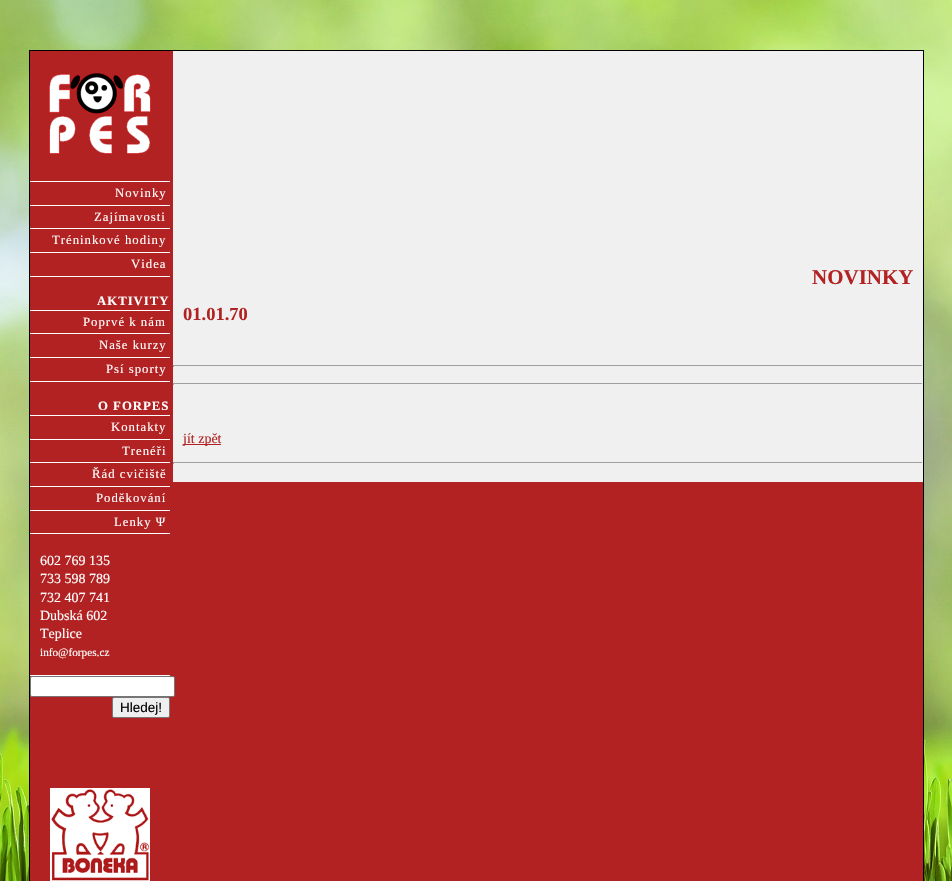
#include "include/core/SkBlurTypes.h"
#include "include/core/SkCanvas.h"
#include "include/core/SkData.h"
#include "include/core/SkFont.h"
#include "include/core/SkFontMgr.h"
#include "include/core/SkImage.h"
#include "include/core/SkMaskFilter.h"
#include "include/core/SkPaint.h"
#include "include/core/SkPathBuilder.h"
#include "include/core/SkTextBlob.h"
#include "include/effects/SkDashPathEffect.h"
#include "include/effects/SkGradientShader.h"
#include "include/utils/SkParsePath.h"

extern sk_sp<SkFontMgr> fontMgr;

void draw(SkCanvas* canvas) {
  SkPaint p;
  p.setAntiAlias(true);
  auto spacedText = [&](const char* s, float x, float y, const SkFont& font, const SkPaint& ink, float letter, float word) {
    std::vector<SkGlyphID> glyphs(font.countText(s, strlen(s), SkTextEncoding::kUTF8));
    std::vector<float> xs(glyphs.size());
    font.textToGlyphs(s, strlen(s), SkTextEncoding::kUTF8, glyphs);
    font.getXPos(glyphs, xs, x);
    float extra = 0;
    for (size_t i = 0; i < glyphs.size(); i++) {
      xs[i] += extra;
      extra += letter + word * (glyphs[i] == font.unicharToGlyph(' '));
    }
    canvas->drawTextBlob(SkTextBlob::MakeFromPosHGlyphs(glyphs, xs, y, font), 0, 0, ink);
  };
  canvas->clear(SK_ColorWHITE);
  canvas->drawImageRect(SkImages::DeferredFromEncodedData(SkData::MakeFromFileName("images/1.png")), SkRect::MakeLTRB(0, 0, 952, 881), SkSamplingOptions());
  p.setColor(SkColorSetRGB(178, 34, 34));
  canvas->drawRect(SkRect::MakeLTRB(30, 51, 923, 881), p);
  p.setColor(SK_ColorBLACK);
  canvas->drawRect(SkRect::MakeLTRB(29, 50, 924, 51), p);
  canvas->drawRect(SkRect::MakeLTRB(923, 50, 924, 881), p);
  canvas->drawRect(SkRect::MakeLTRB(29, 50, 30, 881), p);
  canvas->drawImageRect(SkImages::DeferredFromEncodedData(SkData::MakeFromFileName("images/2.png")), SkRect::MakeLTRB(49, 73, 151, 154), SkSamplingOptions());
  p.setColor(SK_ColorWHITE);
  canvas->drawRect(SkRect::MakeLTRB(30, 181, 170, 182), p);
  canvas->drawRect(SkRect::MakeLTRB(30, 205, 170, 206), p);
  canvas->drawRect(SkRect::MakeLTRB(30, 228, 170, 229), p);
  canvas->drawRect(SkRect::MakeLTRB(30, 252, 170, 253), p);
  canvas->drawRect(SkRect::MakeLTRB(30, 276, 170, 277), p);
  canvas->drawRect(SkRect::MakeLTRB(30, 310, 170, 311), p);
  canvas->drawRect(SkRect::MakeLTRB(30, 333, 170, 334), p);
  canvas->drawRect(SkRect::MakeLTRB(30, 357, 170, 358), p);
  canvas->drawRect(SkRect::MakeLTRB(30, 381, 170, 382), p);
  canvas->drawRect(SkRect::MakeLTRB(30, 415, 170, 416), p);
  canvas->drawRect(SkRect::MakeLTRB(30, 439, 170, 440), p);
  canvas->drawRect(SkRect::MakeLTRB(30, 462, 170, 463), p);
  canvas->drawRect(SkRect::MakeLTRB(30, 486, 170, 487), p);
  canvas->drawRect(SkRect::MakeLTRB(30, 510, 170, 511), p);
  canvas->drawRect(SkRect::MakeLTRB(30, 533, 170, 534), p);
  canvas->drawRect(SkRect::MakeLTRB(30, 675, 170, 676), p);
  canvas->drawRoundRect(SkRect::MakeLTRB(30.5f, 676.5f, 174.5f, 696.5f), 1.5f, 1.5f, p);
  p.setStyle(SkPaint::kStroke_Style);
  p.setStrokeWidth(1);
  p.setColor(SkColorSetRGB(118, 118, 118));
  canvas->drawRoundRect(SkRect::MakeLTRB(30.5f, 676.5f, 174.5f, 696.5f), 1.5f, 1.5f, p);
  p.setStyle(SkPaint::kFill_Style);
  p.setColor(SkColorSetRGB(239, 239, 239));
  canvas->drawRoundRect(SkRect::MakeLTRB(112.5f, 697.5f, 169.5f, 717.5f), 1.5f, 1.5f, p);
  p.setStyle(SkPaint::kStroke_Style);
  p.setColor(SkColorSetRGB(118, 118, 118));
  canvas->drawRoundRect(SkRect::MakeLTRB(112.5f, 697.5f, 169.5f, 717.5f), 1.5f, 1.5f, p);
  canvas->drawImageRect(SkImages::DeferredFromEncodedData(SkData::MakeFromFileName("images/3.png")), SkRect::MakeLTRB(50, 788, 150, 881), SkSamplingOptions());
  p.setStyle(SkPaint::kFill_Style);
  p.setColor(SkColorSetRGB(240, 240, 240));
  canvas->drawRect(SkRect::MakeLTRB(173, 51, 923, 482), p);
  p.setColor(SkColorSetRGB(159, 159, 159));
  canvas->drawRect(SkRect::MakeLTRB(173, 365, 923, 366), p);
  p.setColor(SkColorSetRGB(238, 238, 238));
  canvas->drawRect(SkRect::MakeLTRB(922, 365, 923, 367), p);
  p.setColor(SkColorSetRGB(159, 159, 159));
  canvas->drawRect(SkRect::MakeLTRB(173, 365, 174, 367), p);
  canvas->drawRect(SkRect::MakeLTRB(173, 383, 923, 384), p);
  p.setColor(SkColorSetRGB(238, 238, 238));
  canvas->drawRect(SkRect::MakeLTRB(922, 383, 923, 385), p);
  p.setColor(SkColorSetRGB(159, 159, 159));
  canvas->drawRect(SkRect::MakeLTRB(173, 383, 174, 385), p);
  p.setColor(SkColorSetRGB(178, 34, 34));
  canvas->drawRect(SkRect::MakeLTRB(183, 444, 221, 445), p);
  p.setColor(SkColorSetRGB(159, 159, 159));
  canvas->drawRect(SkRect::MakeLTRB(173, 462, 923, 463), p);
  p.setColor(SkColorSetRGB(238, 238, 238));
  canvas->drawRect(SkRect::MakeLTRB(922, 462, 923, 464), p);
  p.setColor(SkColorSetRGB(159, 159, 159));
  canvas->drawRect(SkRect::MakeLTRB(173, 462, 174, 464), p);
  SkFont font1(fontMgr->matchFamilyStyle("Liberation Serif", SkFontStyle::Normal()), 12.75f);
  font1.setSubpixel(true);
  p.setColor(SK_ColorWHITE);
  spacedText("Novinky", 115, 197, font1, p, 1, 0);
  spacedText("Zajímavosti", 94, 221, font1, p, 1, 0);
  spacedText("Tréninkové hodiny", 52, 244, font1, p, 1, 0);
  spacedText("Videa", 131, 268, font1, p, 1, 0);
  SkFont font2(fontMgr->matchFamilyStyle("Liberation Serif", SkFontStyle::Bold()), 12.75f);
  font2.setSubpixel(true);
  spacedText("AKTIVITY", 97, 305, font2, p, 1, 0);
  spacedText("Poprvé k nám", 83, 326, font1, p, 1, 0);
  spacedText("Naše kurzy", 99, 349, font1, p, 1, 0);
  spacedText("Psí sporty", 106, 373, font1, p, 1, 0);
  spacedText("O FORPES", 98, 410, font2, p, 1, 0);
  spacedText("Kontakty", 111, 431, font1, p, 1, 0);
  spacedText("Trenéři", 122, 455, font1, p, 1, 0);
  spacedText("Řád cvičiště", 92, 478, font1, p, 1, 0);
  spacedText("Poděkování", 96, 502, font1, p, 1, 0);
  spacedText("Lenky Ψ", 114, 526, font1, p, 1, 0);
  SkFont font3(fontMgr->matchFamilyStyle("Liberation Serif", SkFontStyle::Normal()), 14);
  font3.setSubpixel(true);
  canvas->drawString("602 769 135", 40, 565, font3, p);
  canvas->drawString("733 598 789", 40, 583, font3, p);
  canvas->drawString("732 407 741", 40, 602, font3, p);
  canvas->drawString("Dubská 602", 40, 620, font3, p);
  canvas->drawString("Teplice", 40, 638, font3, p);
  SkFont font4(fontMgr->matchFamilyStyle("Liberation Serif", SkFontStyle::Normal()), 11.25f);
  font4.setSubpixel(true);
  canvas->drawString("info@forpes.cz", 40, 656, font4, p);
  SkFont font5(fontMgr->matchFamilyStyle("Liberation Sans", SkFontStyle::Normal()), 13.5f);
  font5.setSubpixel(true);
  p.setColor(SK_ColorBLACK);
  canvas->drawString("Hledej!", 120, 712, font5, p);
  SkFont font6(fontMgr->matchFamilyStyle("Liberation Serif", SkFontStyle::Bold()), 21);
  font6.setSubpixel(true);
  p.setColor(SkColorSetRGB(178, 34, 34));
  canvas->drawString("NOVINKY", 812, 284, font6, p);
  SkFont font7(fontMgr->matchFamilyStyle("Liberation Serif", SkFontStyle::Bold()), 18.5f);
  font7.setSubpixel(true);
  canvas->drawString("01.01.70", 183, 320, font7, p);
  canvas->drawString("jít zpět", 183, 443, font3, p);
}
